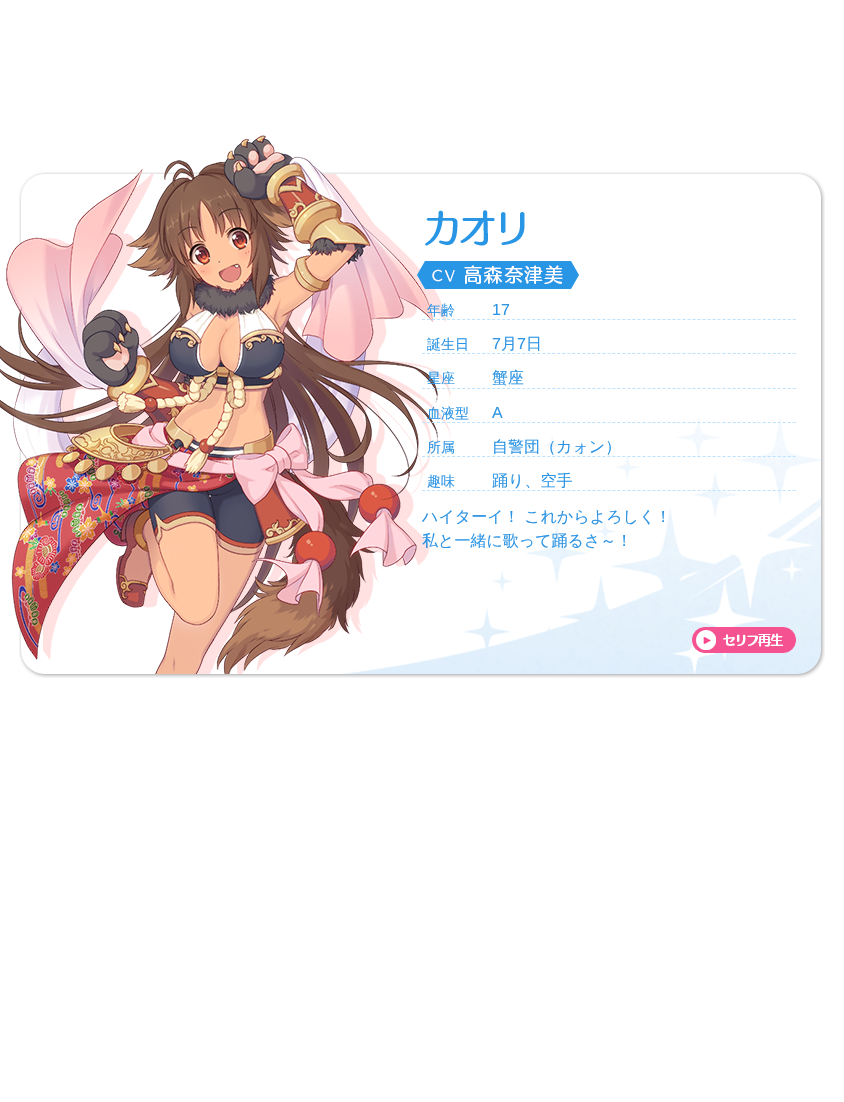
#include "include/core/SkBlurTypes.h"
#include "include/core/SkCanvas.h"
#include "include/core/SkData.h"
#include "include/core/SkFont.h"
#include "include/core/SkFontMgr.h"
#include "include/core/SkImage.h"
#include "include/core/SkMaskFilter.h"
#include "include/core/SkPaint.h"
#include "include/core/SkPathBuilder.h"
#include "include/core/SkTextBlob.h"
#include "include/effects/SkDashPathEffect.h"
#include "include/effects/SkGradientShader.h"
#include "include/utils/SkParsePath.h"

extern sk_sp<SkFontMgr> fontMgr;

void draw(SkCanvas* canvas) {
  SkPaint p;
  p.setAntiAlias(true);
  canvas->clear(SK_ColorWHITE);
  canvas->drawImageRect(SkImages::DeferredFromEncodedData(SkData::MakeFromFileName("images/1.png")), SkRect::MakeLTRB(19, 172, 825, 678), SkSamplingOptions());
  canvas->drawImageRect(SkImages::DeferredFromEncodedData(SkData::MakeFromFileName("images/2.png")), SkRect::MakeLTRB(0, 135, 451, 674), SkSamplingOptions());
  canvas->drawImageRect(SkImages::DeferredFromEncodedData(SkData::MakeFromFileName("images/3.png")), SkRect::MakeLTRB(417, 210, 579, 289), SkSamplingOptions());
  p.setStyle(SkPaint::kStroke_Style);
  p.setStrokeWidth(1);
  p.setColor(SkColorSetRGB(188, 226, 255));
  p.setPathEffect(SkDashPathEffect::Make({{3, 2.01f}}, 0));
  canvas->drawPath(SkPathBuilder().moveTo(422, 319.5f).lineTo(796, 319.5f).detach(), p);
  p.setPathEffect(nullptr);
  p.setPathEffect(SkDashPathEffect::Make({{3, 2.01f}}, 0));
  canvas->drawPath(SkPathBuilder().moveTo(422, 353.5f).lineTo(796, 353.5f).detach(), p);
  p.setPathEffect(nullptr);
  p.setPathEffect(SkDashPathEffect::Make({{3, 2.01f}}, 0));
  canvas->drawPath(SkPathBuilder().moveTo(422, 388.5f).lineTo(796, 388.5f).detach(), p);
  p.setPathEffect(nullptr);
  p.setPathEffect(SkDashPathEffect::Make({{3, 2.01f}}, 0));
  canvas->drawPath(SkPathBuilder().moveTo(422, 422.5f).lineTo(796, 422.5f).detach(), p);
  p.setPathEffect(nullptr);
  p.setPathEffect(SkDashPathEffect::Make({{3, 2.01f}}, 0));
  canvas->drawPath(SkPathBuilder().moveTo(422, 456.5f).lineTo(796, 456.5f).detach(), p);
  p.setPathEffect(nullptr);
  p.setPathEffect(SkDashPathEffect::Make({{3, 2.01f}}, 0));
  canvas->drawPath(SkPathBuilder().moveTo(422, 490.5f).lineTo(796, 490.5f).detach(), p);
  p.setPathEffect(nullptr);
  canvas->drawImageRect(SkImages::DeferredFromEncodedData(SkData::MakeFromFileName("images/4.png")), SkRect::MakeLTRB(692, 627, 796, 653), SkSamplingOptions());
  SkFont font1(fontMgr->matchFamilyStyle("WenQuanYi Zen Hei", SkFontStyle(500, SkFontStyle::kNormal_Width, SkFontStyle::kUpright_Slant)), 14);
  font1.setSubpixel(true);
  p.setStyle(SkPaint::kFill_Style);
  p.setColor(SkColorSetRGB(44, 148, 228));
  canvas->drawString("年齢", 427, 315, font1, p);
  SkFont font2(fontMgr->matchFamilyStyle("Liberation Sans", SkFontStyle::Normal()), 16);
  font2.setSubpixel(true);
  canvas->drawString("17", 492, 315, font2, p);
  canvas->drawString("誕生日", 427, 349, font1, p);
  canvas->drawString("7", 492, 349, font2, p);
  SkFont font3(fontMgr->matchFamilyStyle("WenQuanYi Zen Hei", SkFontStyle(500, SkFontStyle::kNormal_Width, SkFontStyle::kUpright_Slant)), 16);
  font3.setSubpixel(true);
  canvas->drawString("月", 501, 349, font3, p);
  canvas->drawString("7", 517, 349, font2, p);
  canvas->drawString("日", 526, 349, font3, p);
  canvas->drawString("星座", 427, 383, font1, p);
  canvas->drawString("蟹座", 492, 383, font3, p);
  canvas->drawString("血液型", 427, 418, font1, p);
  canvas->drawString("A", 492, 418, font2, p);
  canvas->drawString("所属", 427, 452, font1, p);
  canvas->drawString("自警団（カォン）", 492, 452, font3, p);
  canvas->drawString("趣味", 427, 486, font1, p);
  canvas->drawString("踊り、空手", 492, 486, font3, p);
  canvas->drawString("ハイターイ！ これからよろしく！", 422, 522, font3, p);
  canvas->drawString("私と一緒に歌って踊るさ～！", 422, 546, font3, p);
}
